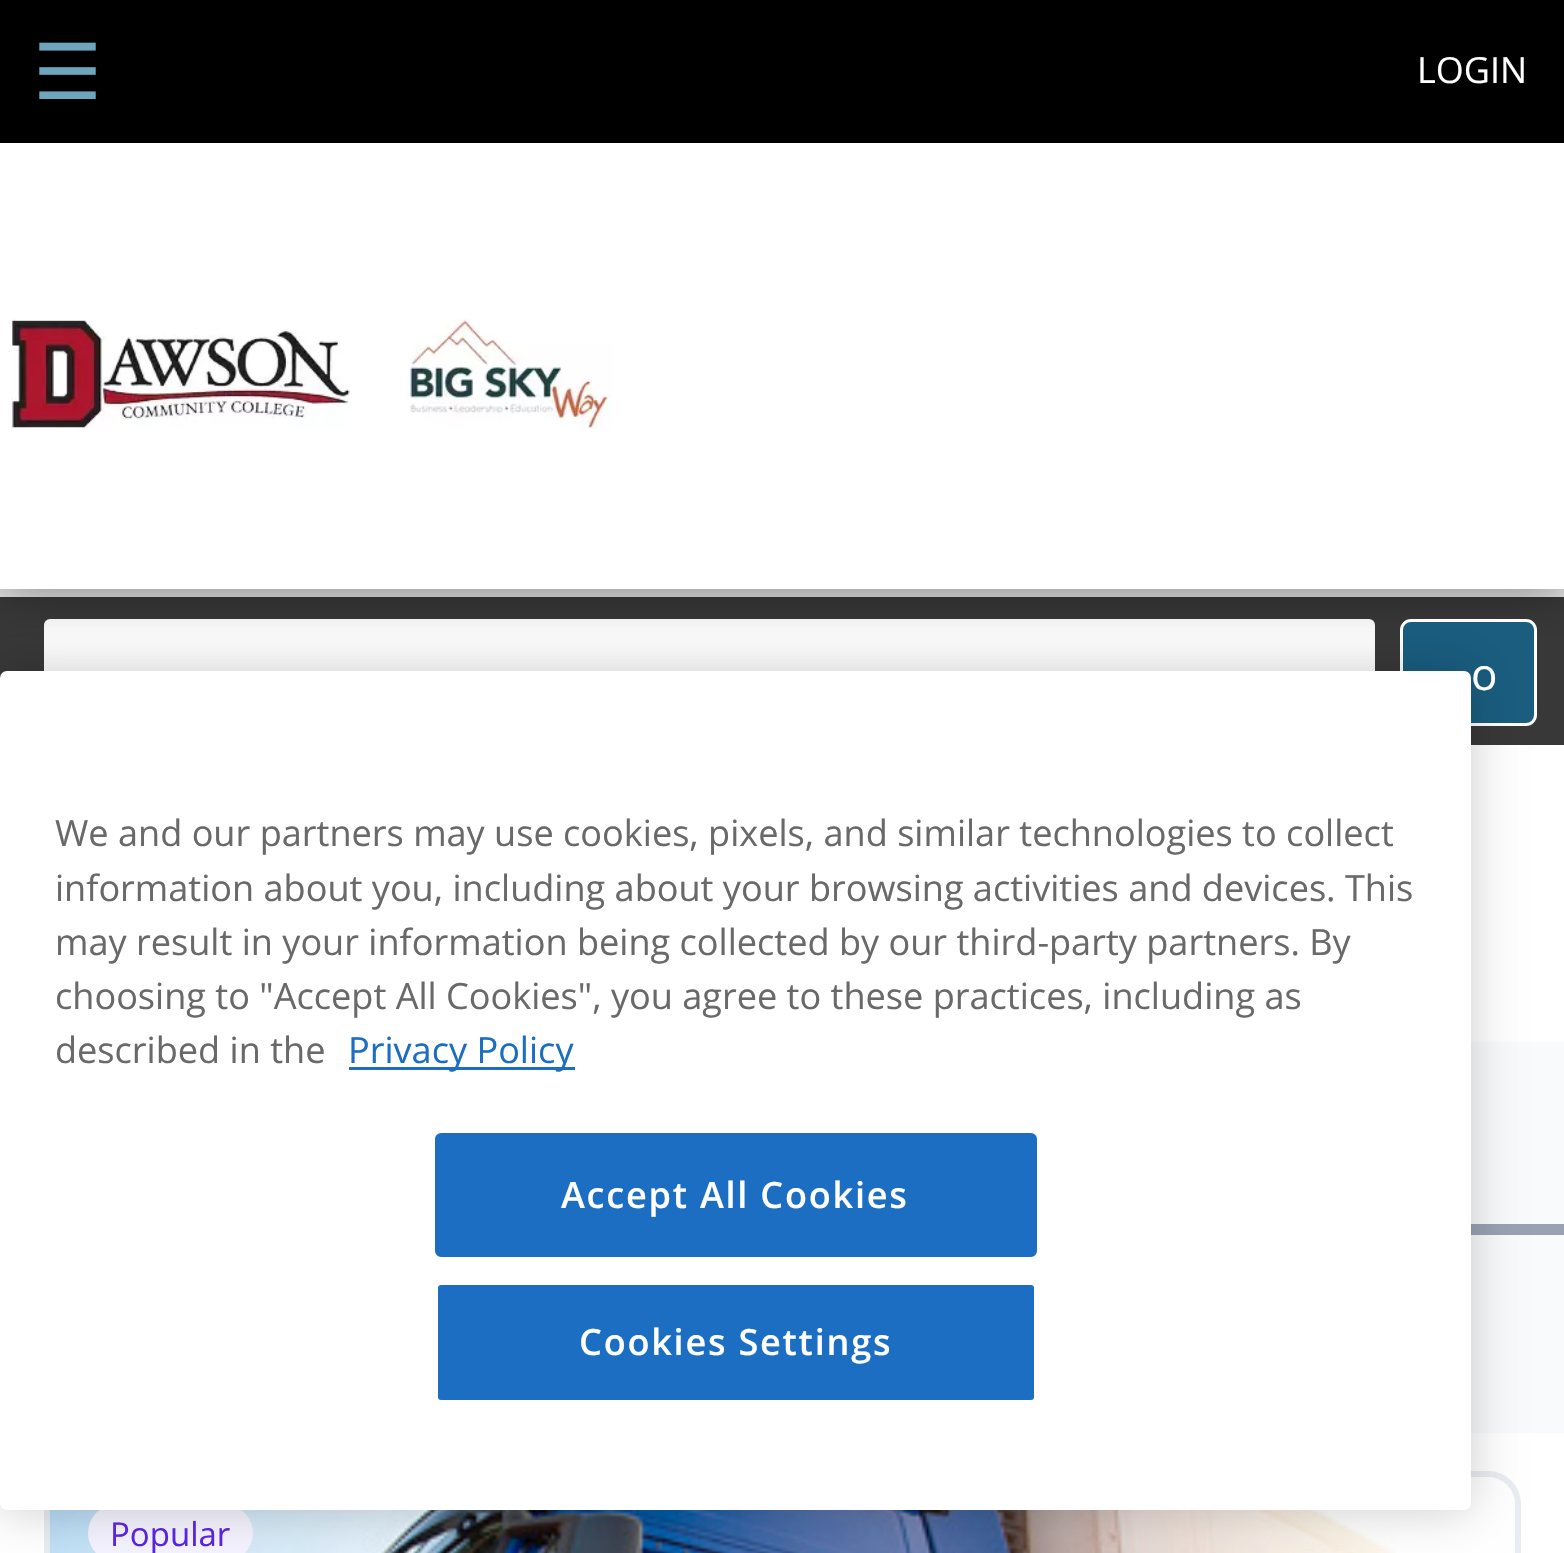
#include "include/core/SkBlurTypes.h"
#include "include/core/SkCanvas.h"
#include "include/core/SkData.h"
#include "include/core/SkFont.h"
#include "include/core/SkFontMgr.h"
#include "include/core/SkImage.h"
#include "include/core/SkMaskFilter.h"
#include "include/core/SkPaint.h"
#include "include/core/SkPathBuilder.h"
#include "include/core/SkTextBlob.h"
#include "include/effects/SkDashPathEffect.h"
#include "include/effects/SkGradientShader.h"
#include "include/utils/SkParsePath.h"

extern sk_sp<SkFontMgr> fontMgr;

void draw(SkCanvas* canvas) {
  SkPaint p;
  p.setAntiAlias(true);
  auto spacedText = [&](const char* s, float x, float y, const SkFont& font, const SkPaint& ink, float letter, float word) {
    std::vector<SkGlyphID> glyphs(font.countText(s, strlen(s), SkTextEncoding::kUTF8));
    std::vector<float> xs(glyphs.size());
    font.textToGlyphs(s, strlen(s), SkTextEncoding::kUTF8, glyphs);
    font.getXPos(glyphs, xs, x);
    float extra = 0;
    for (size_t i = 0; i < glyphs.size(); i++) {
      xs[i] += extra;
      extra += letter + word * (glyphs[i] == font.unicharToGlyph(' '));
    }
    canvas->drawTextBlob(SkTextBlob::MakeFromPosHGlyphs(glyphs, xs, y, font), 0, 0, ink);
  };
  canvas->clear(SK_ColorWHITE);
  p.setColor(SK_ColorBLACK);
  canvas->drawRect(SkRect::MakeLTRB(0, 0, 1564, 143), p);
  p.setColor(SkColorSetRGB(226, 226, 226));
  canvas->drawRect(SkRect::MakeLTRB(0, 589, 1564, 597), p);
  p.setColor(SkColorSetRGB(56, 56, 56));
  canvas->drawRect(SkRect::MakeLTRB(0, 597, 1564, 745), p);
  p.setColor(SK_ColorWHITE);
  canvas->drawRoundRect(SkRect::MakeLTRB(44, 619, 1375, 723), 6, 6, p);
  p.setColor(SkColorSetARGB(107, 0, 0, 0));
  p.setMaskFilter(SkMaskFilter::MakeBlur(kNormal_SkBlurStyle, 23.5f));
  canvas->drawRect(SkRect::MakeLTRB(0, 146, 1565, 591), p);
  p.setMaskFilter(nullptr);
  p.setColor(SK_ColorWHITE);
  canvas->drawRect(SkRect::MakeLTRB(0, 143, 1564, 589), p);
  canvas->drawImageRect(SkImages::DeferredFromEncodedData(SkData::MakeFromFileName("images/1.png")), SkRect::MakeLTRB(11, 319, 612, 429), SkSamplingOptions());
  p.setColor(SkColorSetRGB(26, 93, 127));
  canvas->drawRoundRect(SkRect::MakeLTRB(1401.5f, 620.5f, 1535.5f, 724.5f), 9.5f, 9.5f, p);
  p.setStyle(SkPaint::kStroke_Style);
  p.setStrokeWidth(3);
  p.setColor(SK_ColorWHITE);
  canvas->drawRoundRect(SkRect::MakeLTRB(1401.5f, 620.5f, 1535.5f, 724.5f), 9.5f, 9.5f, p);
  p.setStyle(SkPaint::kFill_Style);
  p.setColor(SkColorSetRGB(249, 250, 251));
  canvas->drawRect(SkRect::MakeLTRB(1471, 1042, 1564, 1224), p);
  p.setColor(SkColorSetRGB(152, 162, 179));
  canvas->drawRect(SkRect::MakeLTRB(1471, 1224, 1564, 1235), p);
  p.setColor(SkColorSetRGB(249, 250, 251));
  canvas->drawRect(SkRect::MakeLTRB(1471, 1235, 1564, 1433), p);
  p.setStyle(SkPaint::kStroke_Style);
  p.setStrokeWidth(6);
  p.setColor(SkColorSetRGB(233, 236, 240));
  canvas->drawRoundRect(SkRect::MakeLTRB(47, 1474, 1518, 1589), 30, 30, p);
  p.setStyle(SkPaint::kFill_Style);
  p.setColor(SK_ColorWHITE);
  canvas->drawRoundRect(SkRect::MakeLTRB(50, 1477, 1515, 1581), 28, 28, p);
  canvas->drawImageRect(SkImages::DeferredFromEncodedData(SkData::MakeFromFileName("images/2.png")), SkRect::MakeLTRB(49, 1510, 1396, 1553), SkSamplingOptions());
  p.setColor(SkColorSetRGB(244, 243, 255));
  canvas->drawRoundRect(SkRect::MakeLTRB(88, 1504, 253, 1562), 29, 29, p);
  p.setColor(SkColorSetARGB(51, 0, 0, 0));
  p.setMaskFilter(SkMaskFilter::MakeBlur(kNormal_SkBlurStyle, 25));
  canvas->drawRoundRect(SkRect::MakeLTRB(0, 671, 1471, 1510), 7, 7, p);
  p.setMaskFilter(nullptr);
  p.setColor(SK_ColorWHITE);
  canvas->drawRoundRect(SkRect::MakeLTRB(0, 671, 1471, 1510), 7, 7, p);
  p.setColor(SkColorSetRGB(27, 110, 194));
  canvas->drawRect(SkRect::MakeLTRB(349, 1067, 575, 1070), p);
  canvas->drawRoundRect(SkRect::MakeLTRB(436.5f, 1134.5f, 1035.5f, 1255.5f), 4.5f, 4.5f, p);
  p.setStyle(SkPaint::kStroke_Style);
  p.setStrokeWidth(3);
  canvas->drawRoundRect(SkRect::MakeLTRB(436.5f, 1134.5f, 1035.5f, 1255.5f), 4.5f, 4.5f, p);
  p.setStyle(SkPaint::kFill_Style);
  canvas->drawRoundRect(SkRect::MakeLTRB(436.5f, 1283.5f, 1035.5f, 1401.5f), 4.5f, 4.5f, p);
  p.setStyle(SkPaint::kStroke_Style);
  p.setColor(SK_ColorWHITE);
  canvas->drawRoundRect(SkRect::MakeLTRB(436.5f, 1283.5f, 1035.5f, 1401.5f), 4.5f, 4.5f, p);
  SkFont font1(fontMgr->matchFamilyStyle("DejaVu Sans", SkFontStyle::Normal()), 77);
  font1.setSubpixel(true);
  p.setStyle(SkPaint::kFill_Style);
  p.setColor(SkColorSetRGB(108, 165, 188));
  canvas->drawString("☰", 33, 99, font1, p);
  SkFont font2(fontMgr->matchFamilyStyle("Open Sans", SkFontStyle::Normal()), 36);
  font2.setSubpixel(true);
  p.setColor(SK_ColorWHITE);
  canvas->drawString("LOGIN", 1417, 83, font2, p);
  SkFont font3(fontMgr->matchFamilyStyle("Open Sans", SkFontStyle::Normal()), 44);
  font3.setSubpixel(true);
  canvas->drawString("o", 1471, 690, font3, p);
  SkFont font4(fontMgr->matchFamilyStyle("Open Sans", SkFontStyle::Normal()), 33);
  font4.setSubpixel(true);
  p.setColor(SkColorSetRGB(89, 37, 220));
  canvas->drawString("Popular", 110, 1546, font4, p);
  SkFont font5(fontMgr->matchFamilyStyle("Open Sans", SkFontStyle::Normal()), 36.1f);
  font5.setSubpixel(true);
  p.setColor(SkColorSetRGB(105, 105, 105));
  canvas->drawString("We and our partners may use cookies, pixels, and similar technologies to collect", 55, 846, font5, p);
  canvas->drawString("information about you, including about your browsing activities and devices. This", 55, 901, font5, p);
  canvas->drawString("may result in your information being collected by our third-party partners. By", 55, 955, font5, p);
  canvas->drawString("choosing to \"Accept All Cookies\", you agree to these practices, including as", 55, 1009, font5, p);
  canvas->drawString("described in the", 55, 1063, font5, p);
  p.setColor(SkColorSetRGB(27, 110, 194));
  canvas->drawString("Privacy Policy", 348, 1063, font5, p);
  SkFont font6(fontMgr->matchFamilyStyle("Open Sans", SkFontStyle(600, SkFontStyle::kNormal_Width, SkFontStyle::kUpright_Slant)), 36.1f);
  font6.setSubpixel(true);
  p.setColor(SK_ColorWHITE);
  spacedText("Accept All Cookies", 561, 1208, font6, p, 1.75f, 0);
  spacedText("Cookies Settings", 579, 1355, font6, p, 1.75f, 0);
}
